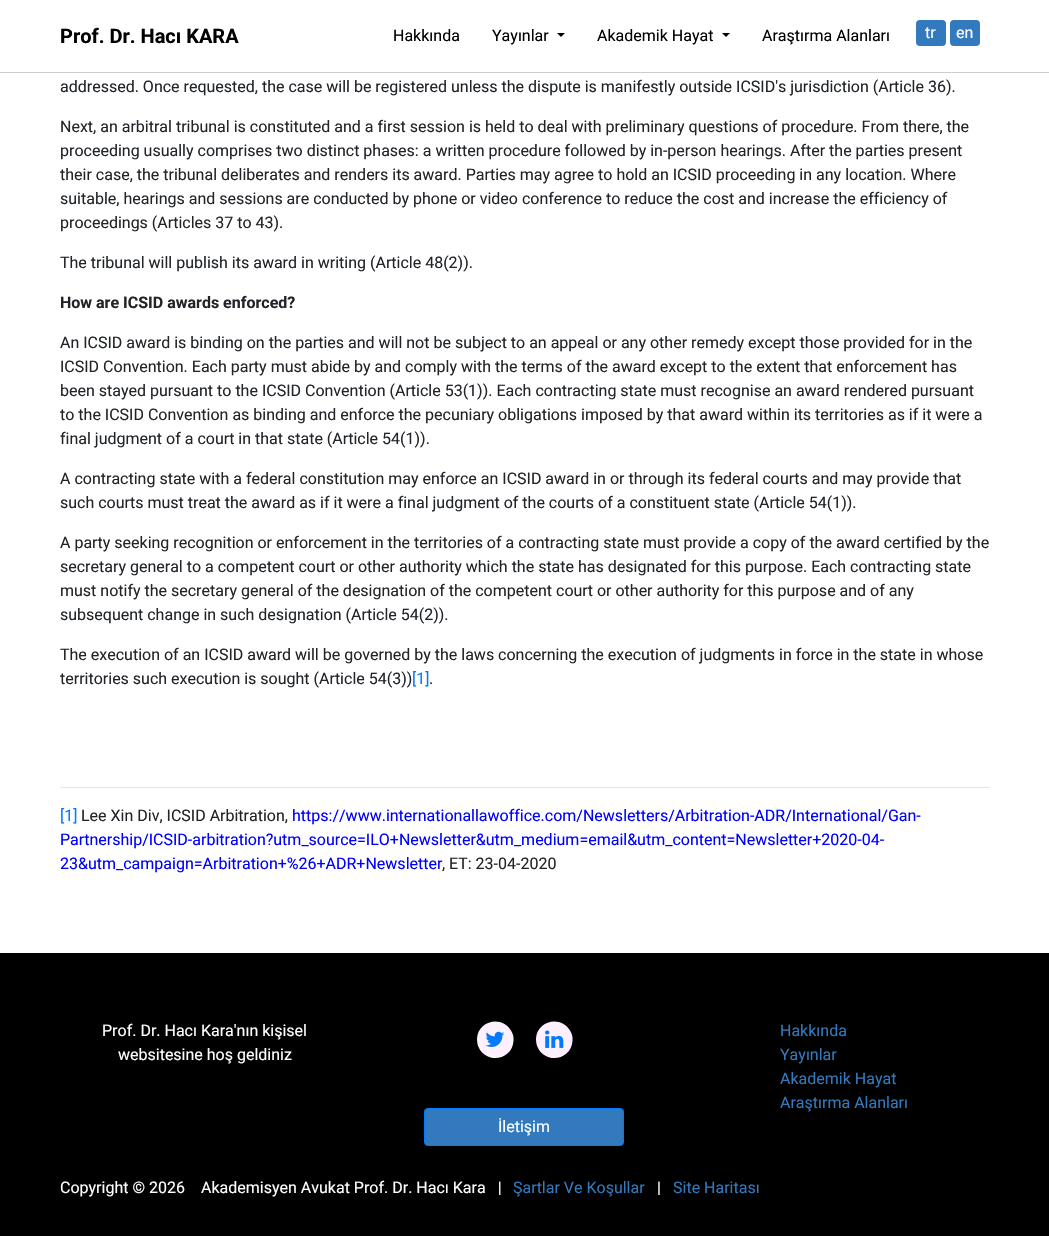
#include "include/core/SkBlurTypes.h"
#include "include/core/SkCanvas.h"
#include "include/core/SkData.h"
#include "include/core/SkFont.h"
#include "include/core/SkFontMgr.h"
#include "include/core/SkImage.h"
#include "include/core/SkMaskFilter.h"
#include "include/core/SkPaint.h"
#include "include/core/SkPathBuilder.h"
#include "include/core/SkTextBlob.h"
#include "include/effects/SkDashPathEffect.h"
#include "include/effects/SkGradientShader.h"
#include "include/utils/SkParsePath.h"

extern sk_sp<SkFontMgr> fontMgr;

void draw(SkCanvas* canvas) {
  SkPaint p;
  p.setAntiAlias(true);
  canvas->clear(SK_ColorWHITE);
  p.setColor(SkColorSetRGB(204, 204, 204));
  canvas->drawRect(SkRect::MakeLTRB(0, 72, 1049, 73), p);
  p.setColor(SK_ColorBLACK);
  canvas->drawPath(SkPathBuilder().moveTo(557, 33).lineTo(565, 33).lineTo(561, 37).close().detach(), p);
  canvas->drawPath(SkPathBuilder().moveTo(722, 33).lineTo(730, 33).lineTo(726, 37).close().detach(), p);
  p.setColor(SkColorSetRGB(51, 121, 190));
  canvas->drawRoundRect(SkRect::MakeLTRB(916, 20, 946, 46), 4, 4, p);
  canvas->drawRoundRect(SkRect::MakeLTRB(950, 20, 980, 46), 4, 4, p);
  p.setColor(SkColorSetRGB(230, 230, 230));
  canvas->drawRect(SkRect::MakeLTRB(60, 787, 990, 788), p);
  p.setColor(SK_ColorBLACK);
  canvas->drawRect(SkRect::MakeLTRB(0, 953, 1049, 1236), p);
  p.setColor(SkColorSetRGB(255, 240, 255));
  canvas->drawPath(SkPathBuilder().moveTo(511, 1030.5f).cubicTo(513, 1033.5f, 514, 1037.5f, 513.5f, 1041).cubicTo(512.5f, 1059, 488.5f, 1064.5f, 479.5f, 1049).cubicTo(477.5f, 1046, 477, 1042, 477, 1038.5f).cubicTo(478, 1020.5f, 502, 1015, 511, 1030.5f).close().detach(), p);
  canvas->drawImageRect(SkImages::DeferredFromEncodedData(SkData::MakeFromFileName("images/1.png")), SkRect::MakeLTRB(485, 1031, 505, 1047), SkSamplingOptions());
  canvas->drawPath(SkPathBuilder().moveTo(570, 1030.5f).cubicTo(572, 1033.5f, 573, 1037.5f, 572.5f, 1041).cubicTo(571.5f, 1059, 547.5f, 1064.5f, 538.5f, 1049).cubicTo(536.5f, 1046, 536, 1042, 536, 1038.5f).cubicTo(537, 1020.5f, 561, 1015, 570, 1030.5f).close().detach(), p);
  canvas->drawImageRect(SkImages::DeferredFromEncodedData(SkData::MakeFromFileName("images/2.png")), SkRect::MakeLTRB(545, 1030, 564, 1048), SkSamplingOptions());
  p.setColor(SkColorSetRGB(51, 121, 190));
  canvas->drawRoundRect(SkRect::MakeLTRB(424.5f, 1108.5f, 623.5f, 1145.5f), 3.5f, 3.5f, p);
  p.setStyle(SkPaint::kStroke_Style);
  p.setStrokeWidth(1);
  p.setColor(SkColorSetRGB(0, 123, 255));
  canvas->drawRoundRect(SkRect::MakeLTRB(424.5f, 1108.5f, 623.5f, 1145.5f), 3.5f, 3.5f, p);
  SkFont font1(fontMgr->matchFamilyStyle("Roboto", SkFontStyle::Bold()), 20);
  font1.setSubpixel(true);
  p.setStyle(SkPaint::kFill_Style);
  p.setColor(SK_ColorBLACK);
  canvas->drawString("Prof. Dr. Hacı KARA", 60, 43, font1, p);
  SkFont font2(fontMgr->matchFamilyStyle("Roboto", SkFontStyle::Normal()), 16);
  font2.setSubpixel(true);
  canvas->drawString("Hakkında", 393, 41, font2, p);
  canvas->drawString("Yayınlar", 492, 41, font2, p);
  canvas->drawString("Akademik Hayat", 597, 41, font2, p);
  canvas->drawString("Araştırma Alanları", 762, 41, font2, p);
  p.setColor(SK_ColorWHITE);
  canvas->drawString("tr", 925, 38, font2, p);
  canvas->drawString("en", 956, 38, font2, p);
  p.setColor(SkColorSetRGB(33, 37, 41));
  canvas->drawString("addressed. Once requested, the case will be registered unless the dispute is manifestly outside ICSID's jurisdiction (Article 36).", 60, 92, font2, p);
  canvas->drawString("Next, an arbitral tribunal is constituted and a first session is held to deal with preliminary questions of procedure. From there, the", 60, 132, font2, p);
  canvas->drawString("proceeding usually comprises two distinct phases: a written procedure followed by in-person hearings. After the parties present", 60, 156, font2, p);
  canvas->drawString("their case, the tribunal deliberates and renders its award. Parties may agree to hold an ICSID proceeding in any location. Where", 60, 180, font2, p);
  canvas->drawString("suitable, hearings and sessions are conducted by phone or video conference to reduce the cost and increase the efficiency of", 60, 204, font2, p);
  canvas->drawString("proceedings (Articles 37 to 43).", 60, 228, font2, p);
  canvas->drawString("The tribunal will publish its award in writing (Article 48(2)).", 60, 268, font2, p);
  SkFont font3(fontMgr->matchFamilyStyle("Roboto", SkFontStyle::Bold()), 16);
  font3.setSubpixel(true);
  canvas->drawString("How are ICSID awards enforced?", 60, 308, font3, p);
  canvas->drawString("An ICSID award is binding on the parties and will not be subject to an appeal or any other remedy except those provided for in the", 60, 348, font2, p);
  canvas->drawString("ICSID Convention. Each party must abide by and comply with the terms of the award except to the extent that enforcement has", 60, 372, font2, p);
  canvas->drawString("been stayed pursuant to the ICSID Convention (Article 53(1)). Each contracting state must recognise an award rendered pursuant", 60, 396, font2, p);
  canvas->drawString("to the ICSID Convention as binding and enforce the pecuniary obligations imposed by that award within its territories as if it were a", 60, 420, font2, p);
  canvas->drawString("final judgment of a court in that state (Article 54(1)).", 60, 444, font2, p);
  canvas->drawString("A contracting state with a federal constitution may enforce an ICSID award in or through its federal courts and may provide that", 60, 484, font2, p);
  canvas->drawString("such courts must treat the award as if it were a final judgment of the courts of a constituent state (Article 54(1)).", 60, 508, font2, p);
  canvas->drawString("A party seeking recognition or enforcement in the territories of a contracting state must provide a copy of the award certified by the", 60, 548, font2, p);
  canvas->drawString("secretary general to a competent court or other authority which the state has designated for this purpose. Each contracting state", 60, 572, font2, p);
  canvas->drawString("must notify the secretary general of the designation of the competent court or other authority for this purpose and of any", 60, 596, font2, p);
  canvas->drawString("subsequent change in such designation (Article 54(2)).", 60, 620, font2, p);
  canvas->drawString("The execution of an ICSID award will be governed by the laws concerning the execution of judgments in force in the state in whose", 60, 660, font2, p);
  canvas->drawString("territories such execution is sought (Article 54(3))", 60, 684, font2, p);
  p.setColor(SkColorSetRGB(0, 123, 255));
  canvas->drawString("[1]", 412, 684, font2, p);
  p.setColor(SkColorSetRGB(33, 37, 41));
  canvas->drawString(".", 429, 684, font2, p);
  p.setColor(SkColorSetRGB(0, 123, 255));
  canvas->drawString("[1]", 60, 821, font2, p);
  p.setColor(SkColorSetRGB(33, 37, 41));
  canvas->drawString("Lee Xin Div, ICSID Arbitration,", 81, 821, font2, p);
  p.setColor(SkColorSetRGB(0, 0, 255));
  canvas->drawString("https://www.internationallawoffice.com/Newsletters/Arbitration-ADR/International/Gan-", 292, 821, font2, p);
  canvas->drawString("Partnership/ICSID-arbitration?utm_source=ILO+Newsletter&utm_medium=email&utm_content=Newsletter+2020-04-", 60, 845, font2, p);
  canvas->drawString("23&utm_campaign=Arbitration+%26+ADR+Newsletter", 60, 869, font2, p);
  p.setColor(SkColorSetRGB(33, 37, 41));
  canvas->drawString(", ET: 23-04-2020", 442, 869, font2, p);
  p.setColor(SK_ColorWHITE);
  canvas->drawString("Prof. Dr. Hacı Kara'nın kişisel", 102, 1036, font2, p);
  canvas->drawString("websitesine hoş geldiniz", 118, 1060, font2, p);
  p.setColor(SkColorSetRGB(51, 121, 190));
  canvas->drawString("Hakkında", 780, 1036, font2, p);
  canvas->drawString("Yayınlar", 780, 1060, font2, p);
  canvas->drawString("Akademik Hayat", 780, 1084, font2, p);
  canvas->drawString("Araştırma Alanları", 780, 1108, font2, p);
  p.setColor(SK_ColorWHITE);
  canvas->drawString("İletişim", 498, 1132, font2, p);
  canvas->drawString("Copyright © 2026   Akademisyen Avukat Prof. Dr. Hacı Kara  |", 60, 1193, font2, p);
  p.setColor(SkColorSetRGB(51, 121, 190));
  canvas->drawString("Şartlar Ve Koşullar", 513, 1193, font2, p);
  p.setColor(SK_ColorWHITE);
  canvas->drawString("|", 657, 1193, font2, p);
  p.setColor(SkColorSetRGB(51, 121, 190));
  canvas->drawString("Site Haritası", 673, 1193, font2, p);
}
